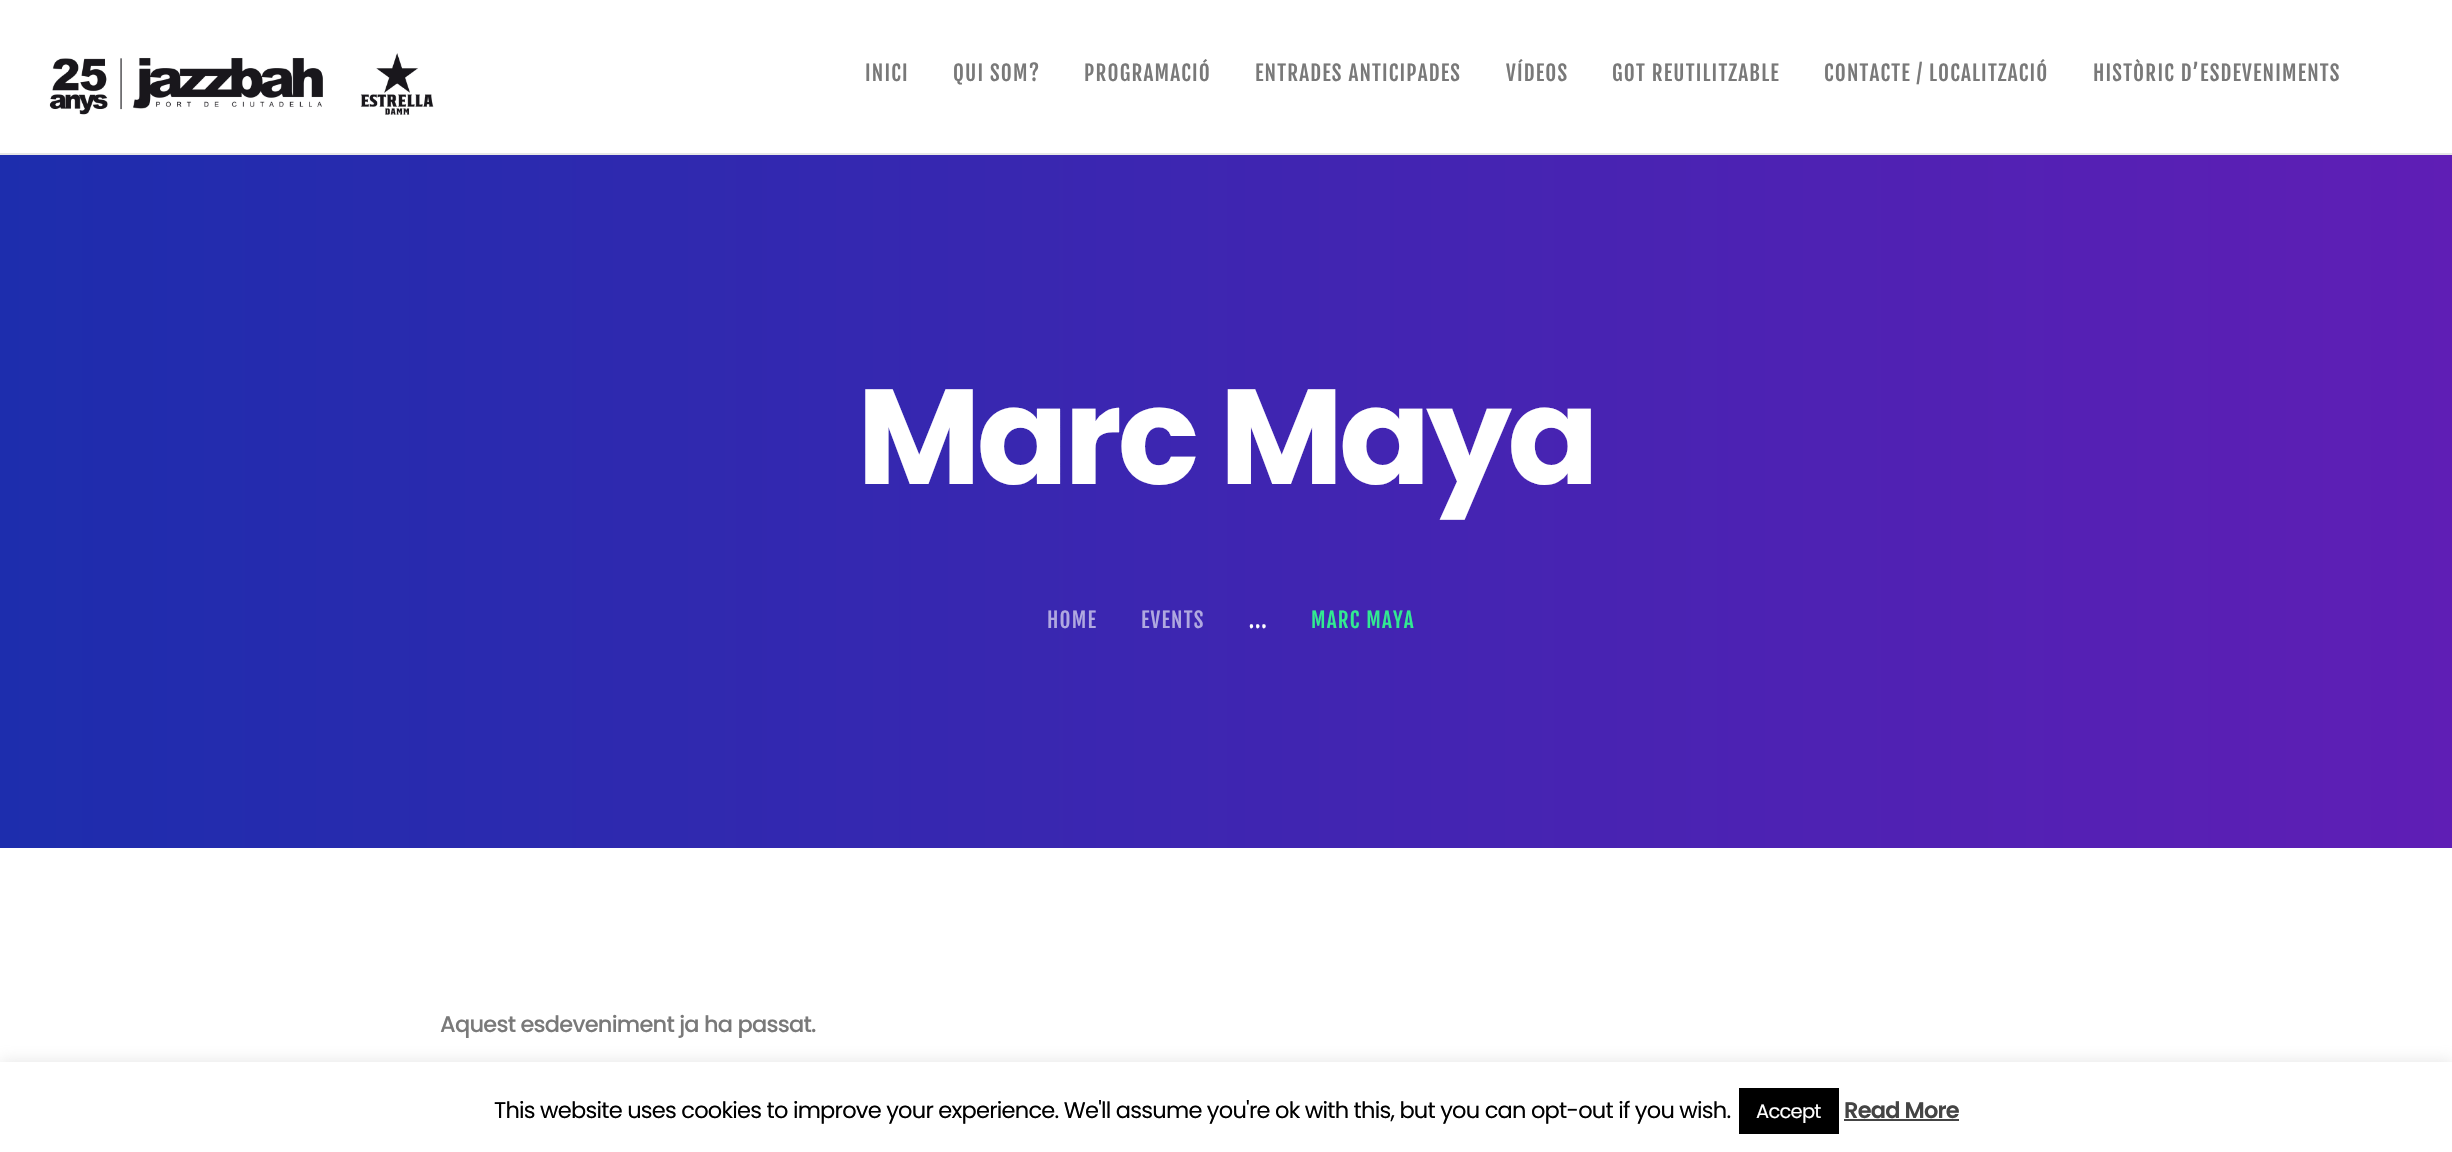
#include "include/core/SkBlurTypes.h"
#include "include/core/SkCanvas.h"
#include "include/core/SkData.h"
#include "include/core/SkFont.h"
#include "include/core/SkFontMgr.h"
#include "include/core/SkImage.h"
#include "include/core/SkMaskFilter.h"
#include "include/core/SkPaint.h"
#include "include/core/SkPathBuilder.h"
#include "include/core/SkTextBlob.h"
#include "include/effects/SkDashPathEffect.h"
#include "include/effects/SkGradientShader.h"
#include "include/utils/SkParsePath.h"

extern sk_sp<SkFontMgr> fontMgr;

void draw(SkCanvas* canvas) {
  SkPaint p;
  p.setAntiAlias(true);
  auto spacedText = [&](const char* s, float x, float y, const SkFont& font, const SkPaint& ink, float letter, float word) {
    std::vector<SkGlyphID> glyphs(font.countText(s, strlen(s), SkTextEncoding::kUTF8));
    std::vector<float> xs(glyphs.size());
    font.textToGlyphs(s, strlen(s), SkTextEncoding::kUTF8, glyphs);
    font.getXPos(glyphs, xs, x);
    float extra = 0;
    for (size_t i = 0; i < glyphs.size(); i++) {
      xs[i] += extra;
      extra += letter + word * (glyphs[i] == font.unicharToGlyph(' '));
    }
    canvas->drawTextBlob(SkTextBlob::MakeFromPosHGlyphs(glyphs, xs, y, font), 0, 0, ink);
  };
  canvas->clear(SK_ColorWHITE);
  p.setColor(SkColorSetRGB(230, 230, 230));
  canvas->drawRect(SkRect::MakeLTRB(0, 153, 2452, 155), p);
  canvas->drawImageRect(SkImages::DeferredFromEncodedData(SkData::MakeFromFileName("images/1.png")), SkRect::MakeLTRB(49, 53, 434, 115), SkSamplingOptions());
  {
    const SkColor colors[] = {SkColorSetRGB(29, 45, 173), SkColorSetRGB(95, 30, 181)};
    const float stops[] = {0, 1};
    const SkPoint ends[] = {{0, 501}, {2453, 501}};
    p.setShader(SkGradientShader::MakeLinear(ends, colors, stops, 2, SkTileMode::kClamp));
    p.setAlpha(255);
  }
  canvas->drawRect(SkRect::MakeLTRB(0, 155, 2452, 848), p);
  p.setShader(nullptr);
  p.setColor(SkColorSetARGB(77, 172, 171, 171));
  p.setMaskFilter(SkMaskFilter::MakeBlur(kNormal_SkBlurStyle, 7.5f));
  canvas->drawRect(SkRect::MakeLTRB(0, 1061, 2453, 1151), p);
  p.setMaskFilter(nullptr);
  p.setColor(SK_ColorWHITE);
  canvas->drawRect(SkRect::MakeLTRB(0, 1062, 2452, 1152), p);
  p.setColor(SK_ColorBLACK);
  canvas->drawRect(SkRect::MakeLTRB(1739, 1088, 1839, 1134), p);
  p.setColor(SkColorSetRGB(68, 68, 68));
  canvas->drawRect(SkRect::MakeLTRB(1844, 1119, 1959, 1121), p);
  SkFont font1(fontMgr->matchFamilyStyle("Fjalla One", SkFontStyle::Normal()), 21);
  font1.setSubpixel(true);
  p.setColor(SkColorSetRGB(121, 121, 121));
  spacedText("INICI", 865, 81, font1, p, 1.2f, 0);
  spacedText("QUI SOM?", 953, 81, font1, p, 1.2f, 0);
  spacedText("PROGRAMACIÓ", 1084, 81, font1, p, 1.2f, 0);
  spacedText("ENTRADES ANTICIPADES", 1255, 81, font1, p, 1.2f, 0);
  spacedText("VÍDEOS", 1506, 81, font1, p, 1.2f, 0);
  spacedText("GOT REUTILITZABLE", 1612, 81, font1, p, 1.2f, 0);
  spacedText("CONTACTE / LOCALITZACIÓ", 1824, 81, font1, p, 1.2f, 0);
  spacedText("HISTÒRIC D’ESDEVENIMENTS", 2093, 81, font1, p, 1.2f, 0);
  SkFont font2(fontMgr->matchFamilyStyle("Poppins", SkFontStyle::Bold()), 135);
  font2.setSubpixel(true);
  p.setColor(SK_ColorWHITE);
  spacedText("Marc Maya", 857, 484, font2, p, -4.25f, 0);
  p.setColor(SkColorSetRGB(176, 168, 224));
  spacedText("HOME", 1047, 628, font1, p, 1.2f, 0);
  spacedText("EVENTS", 1141, 628, font1, p, 1.2f, 0);
  p.setColor(SK_ColorWHITE);
  spacedText("...", 1249, 628, font1, p, 1.2f, 0);
  p.setColor(SkColorSetRGB(50, 234, 145));
  spacedText("MARC MAYA", 1311, 628, font1, p, 1.2f, 0);
  SkFont font3(fontMgr->matchFamilyStyle("Poppins", SkFontStyle(500, SkFontStyle::kNormal_Width, SkFontStyle::kUpright_Slant)), 22.5f);
  font3.setSubpixel(true);
  p.setColor(SkColorSetRGB(121, 121, 121));
  spacedText("Aquest esdeveniment ja ha passat.", 440, 1032, font3, p, -0.75f, 0);
  SkFont font4(fontMgr->matchFamilyStyle("Poppins", SkFontStyle::Normal()), 22.5f);
  font4.setSubpixel(true);
  p.setColor(SK_ColorBLACK);
  spacedText("This website uses cookies to improve your experience. We'll assume you're ok with this, but you can opt-out if you wish.", 494, 1118, font4, p, -0.75f, 0);
  SkFont font5(fontMgr->matchFamilyStyle("Poppins", SkFontStyle::Normal()), 19.5f);
  font5.setSubpixel(true);
  p.setColor(SK_ColorWHITE);
  spacedText("Accept", 1756, 1118, font5, p, -0.75f, 0);
  SkFont font6(fontMgr->matchFamilyStyle("Poppins", SkFontStyle(600, SkFontStyle::kNormal_Width, SkFontStyle::kUpright_Slant)), 22.5f);
  font6.setSubpixel(true);
  p.setColor(SkColorSetRGB(68, 68, 68));
  spacedText("Read More", 1844, 1118, font6, p, -0.75f, 0);
}
